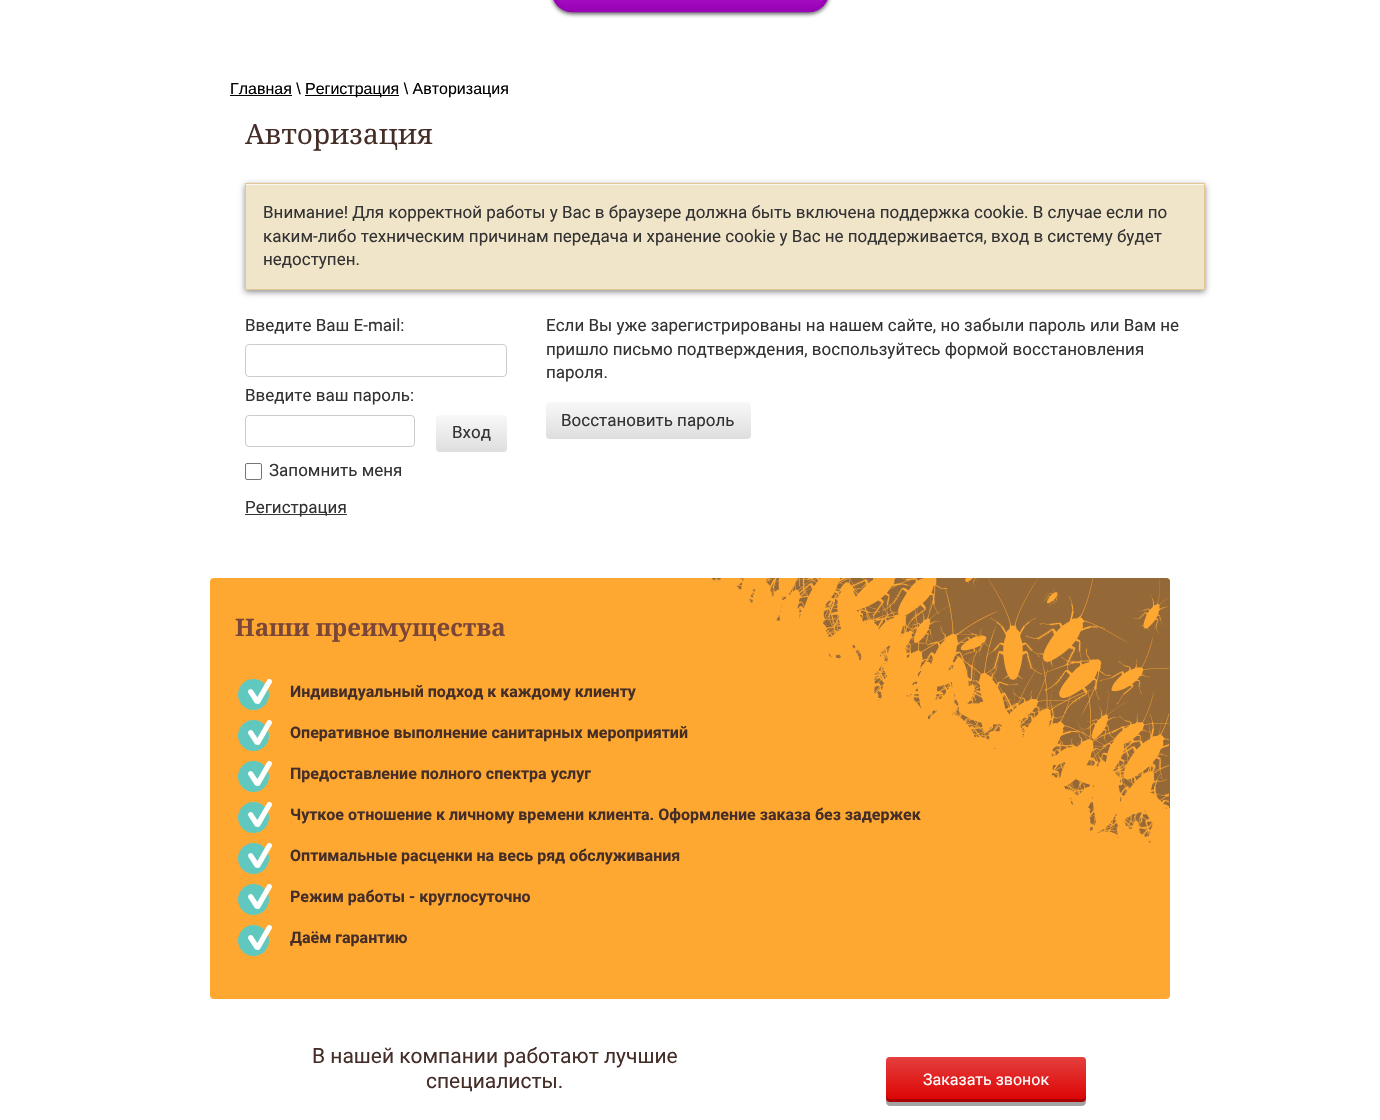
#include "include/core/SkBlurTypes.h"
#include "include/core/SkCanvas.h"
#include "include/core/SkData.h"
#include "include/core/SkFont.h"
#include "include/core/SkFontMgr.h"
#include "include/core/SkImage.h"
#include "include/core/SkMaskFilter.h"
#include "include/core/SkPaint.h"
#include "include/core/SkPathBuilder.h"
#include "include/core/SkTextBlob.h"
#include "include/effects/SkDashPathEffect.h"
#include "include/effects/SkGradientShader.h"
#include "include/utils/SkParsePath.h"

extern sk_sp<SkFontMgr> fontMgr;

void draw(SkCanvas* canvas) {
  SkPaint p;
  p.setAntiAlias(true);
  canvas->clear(SK_ColorWHITE);
  canvas->drawImageRect(SkImages::DeferredFromEncodedData(SkData::MakeFromFileName("images/1.png")), SkRect::MakeLTRB(549, 0, 832, 18), SkSamplingOptions());
  p.setColor(SK_ColorBLACK);
  canvas->drawRect(SkRect::MakeLTRB(230, 95, 292, 96), p);
  canvas->drawRect(SkRect::MakeLTRB(305, 95, 399, 96), p);
  p.setColor(SkColorSetARGB(115, 0, 0, 0));
  p.setMaskFilter(SkMaskFilter::MakeBlur(kNormal_SkBlurStyle, 3));
  canvas->drawRect(SkRect::MakeLTRB(245, 185, 1205, 292), p);
  p.setMaskFilter(nullptr);
  p.setColor(SkColorSetRGB(240, 228, 201));
  canvas->drawRect(SkRect::MakeLTRB(246, 185, 1204, 289), p);
  p.setColor(SkColorSetRGB(251, 248, 242));
  canvas->drawRect(SkRect::MakeLTRB(246, 184, 1204, 185), p);
  p.setStyle(SkPaint::kStroke_Style);
  p.setStrokeWidth(1);
  p.setColor(SkColorSetRGB(225, 200, 147));
  canvas->drawRect(SkRect::MakeLTRB(245.5f, 183.5f, 1204.5f, 289.5f), p);
  p.setColor(SkColorSetRGB(204, 204, 204));
  canvas->drawRoundRect(SkRect::MakeLTRB(245.5f, 344.5f, 506.5f, 376.5f), 3.5f, 3.5f, p);
  canvas->drawRoundRect(SkRect::MakeLTRB(245.5f, 415.5f, 414.5f, 446.5f), 3.5f, 3.5f, p);
  p.setStyle(SkPaint::kFill_Style);
  {
    const SkColor colors[] = {SkColorSetRGB(248, 248, 248), SkColorSetRGB(222, 222, 222)};
    const float stops[] = {0, 1};
    const SkPoint ends[] = {{472, 415}, {472, 452}};
    p.setShader(SkGradientShader::MakeLinear(ends, colors, stops, 2, SkTileMode::kClamp));
    p.setAlpha(255);
  }
  canvas->drawRoundRect(SkRect::MakeLTRB(436, 415, 507, 452), 4, 4, p);
  p.setStyle(SkPaint::kStroke_Style);
  p.setShader(nullptr);
  p.setColor(SkColorSetRGB(118, 118, 118));
  canvas->drawRoundRect(SkRect::MakeLTRB(245.5f, 463.5f, 261.5f, 479.5f), 1.5f, 1.5f, p);
  p.setStyle(SkPaint::kFill_Style);
  p.setColor(SkColorSetRGB(54, 54, 54));
  canvas->drawRect(SkRect::MakeLTRB(245, 514, 347, 515), p);
  {
    const SkColor colors[] = {SkColorSetRGB(248, 248, 248), SkColorSetRGB(222, 222, 222)};
    const float stops[] = {0, 1};
    const SkPoint ends[] = {{649, 402}, {649, 439}};
    p.setShader(SkGradientShader::MakeLinear(ends, colors, stops, 2, SkTileMode::kClamp));
    p.setAlpha(255);
  }
  canvas->drawRoundRect(SkRect::MakeLTRB(546, 402, 751, 439), 4, 4, p);
  p.setShader(nullptr);
  p.setColor(SkColorSetRGB(254, 168, 50));
  canvas->drawRoundRect(SkRect::MakeLTRB(210, 578, 1170, 999), 4, 4, p);
  canvas->drawImageRect(SkImages::DeferredFromEncodedData(SkData::MakeFromFileName("images/2.png")), SkRect::MakeLTRB(711, 578, 1170, 844), SkSamplingOptions());
  canvas->drawImageRect(SkImages::DeferredFromEncodedData(SkData::MakeFromFileName("images/3.png")), SkRect::MakeLTRB(238, 679, 272, 710), SkSamplingOptions());
  canvas->drawImageRect(SkImages::DeferredFromEncodedData(SkData::MakeFromFileName("images/3.png")), SkRect::MakeLTRB(238, 720, 272, 751), SkSamplingOptions());
  canvas->drawImageRect(SkImages::DeferredFromEncodedData(SkData::MakeFromFileName("images/3.png")), SkRect::MakeLTRB(238, 761, 272, 792), SkSamplingOptions());
  canvas->drawImageRect(SkImages::DeferredFromEncodedData(SkData::MakeFromFileName("images/3.png")), SkRect::MakeLTRB(238, 802, 272, 833), SkSamplingOptions());
  canvas->drawImageRect(SkImages::DeferredFromEncodedData(SkData::MakeFromFileName("images/3.png")), SkRect::MakeLTRB(238, 843, 272, 874), SkSamplingOptions());
  canvas->drawImageRect(SkImages::DeferredFromEncodedData(SkData::MakeFromFileName("images/3.png")), SkRect::MakeLTRB(238, 884, 272, 915), SkSamplingOptions());
  canvas->drawImageRect(SkImages::DeferredFromEncodedData(SkData::MakeFromFileName("images/3.png")), SkRect::MakeLTRB(238, 925, 272, 956), SkSamplingOptions());
  p.setColor(SkColorSetRGB(163, 163, 163));
  canvas->drawPath(SkPathBuilder().moveTo(886, 1098).lineTo(886, 1102).cubicTo(886, 1104, 888, 1106, 890, 1106).lineTo(1082, 1106).cubicTo(1084, 1106, 1086, 1104, 1086, 1102).lineTo(1086, 1098).cubicTo(1086, 1100, 1084, 1102, 1082, 1102).lineTo(890, 1102).cubicTo(888, 1102, 886, 1100, 886, 1098).close().detach(), p);
  p.setColor(SkColorSetRGB(220, 2, 1));
  canvas->drawRoundRect(SkRect::MakeLTRB(886, 1057, 1086, 1102), 4, 4, p);
  {
    const SkColor colors[] = {SkColorSetARGB(61, 255, 255, 255), SkColorSetARGB(0, 255, 255, 255)};
    const float stops[] = {0, 1};
    const SkPoint ends[] = {{986, 1057}, {986, 1102}};
    p.setShader(SkGradientShader::MakeLinear(ends, colors, stops, 2, SkTileMode::kClamp));
    p.setAlpha(255);
  }
  canvas->drawRoundRect(SkRect::MakeLTRB(886, 1057, 1086, 1102), 4, 4, p);
  p.setShader(nullptr);
  p.setColor(SkColorSetARGB(59, 0, 0, 0));
  canvas->drawPath(SkPathBuilder().moveTo(886, 1095).lineTo(886, 1098).cubicTo(886, 1100, 888, 1102, 890, 1102).lineTo(1082, 1102).cubicTo(1084, 1102, 1086, 1100, 1086, 1098).lineTo(1086, 1095).cubicTo(1086, 1097, 1084, 1099, 1082, 1099).lineTo(890, 1099).cubicTo(888, 1099, 886, 1097, 886, 1095).close().detach(), p);
  SkFont font1(fontMgr->matchFamilyStyle("Liberation Sans", SkFontStyle::Normal()), 16);
  font1.setSubpixel(true);
  p.setColor(SK_ColorBLACK);
  canvas->drawString("Главная \\", 230, 94, font1, p);
  canvas->drawString("Регистрация \\ Авторизация", 305, 94, font1, p);
  SkFont font2(fontMgr->matchFamilyStyle("Noto Serif", SkFontStyle::Normal()), 28);
  font2.setSubpixel(true);
  p.setColor(SkColorSetRGB(69, 46, 40));
  canvas->drawString("Авторизация", 245, 144, font2, p);
  SkFont font3(fontMgr->matchFamilyStyle("Roboto", SkFontStyle::Normal()), 17);
  font3.setSubpixel(true);
  p.setColor(SkColorSetRGB(51, 51, 51));
  canvas->drawString("Внимание! Для корректной работы у Вас в браузере должна быть включена поддержка cookie. В случае если по", 263, 218, font3, p);
  canvas->drawString("каким-либо техническим причинам передача и хранение cookie у Вас не поддерживается, вход в систему будет", 263, 242, font3, p);
  canvas->drawString("недоступен.", 263, 265, font3, p);
  canvas->drawString("Введите Ваш E-mail:", 245, 331, font3, p);
  canvas->drawString("Введите ваш пароль:", 245, 401, font3, p);
  canvas->drawString("Вход", 452, 438, font3, p);
  canvas->drawString("Запомнить меня", 269, 476, font3, p);
  canvas->drawString("Регистрация", 245, 513, font3, p);
  canvas->drawString("Если Вы уже зарегистрированы на нашем сайте, но забыли пароль или Вам не", 546, 331, font3, p);
  canvas->drawString("пришло письмо подтверждения, воспользуйтесь формой восстановления", 546, 355, font3, p);
  canvas->drawString("пароля.", 546, 378, font3, p);
  canvas->drawString("Восстановить пароль", 561, 426, font3, p);
  SkFont font4(fontMgr->matchFamilyStyle("Noto Serif", SkFontStyle::Bold()), 24);
  font4.setSubpixel(true);
  p.setColor(SkColorSetRGB(122, 70, 56));
  canvas->drawString("Наши преимущества", 235, 636, font4, p);
  SkFont font5(fontMgr->matchFamilyStyle("Roboto", SkFontStyle::Bold()), 16);
  font5.setSubpixel(true);
  p.setColor(SkColorSetRGB(69, 46, 40));
  canvas->drawString("Индивидуальный подход к каждому клиенту", 290, 697, font5, p);
  canvas->drawString("Оперативное выполнение санитарных мероприятий", 290, 738, font5, p);
  canvas->drawString("Предоставление полного спектра услуг", 290, 779, font5, p);
  canvas->drawString("Чуткое отношение к личному времени клиента. Оформление заказа без задержек", 290, 820, font5, p);
  canvas->drawString("Оптимальные расценки на весь ряд обслуживания", 290, 861, font5, p);
  canvas->drawString("Режим работы - круглосуточно", 290, 902, font5, p);
  canvas->drawString("Даём гарантию", 290, 943, font5, p);
  SkFont font6(fontMgr->matchFamilyStyle("Roboto", SkFontStyle::Normal()), 21);
  font6.setSubpixel(true);
  canvas->drawString("В нашей компании работают лучшие", 312, 1063, font6, p);
  canvas->drawString("специалисты.", 426, 1088, font6, p);
  SkFont font7(fontMgr->matchFamilyStyle("Roboto", SkFontStyle::Normal()), 16);
  font7.setSubpixel(true);
  p.setColor(SK_ColorWHITE);
  canvas->drawString("Заказать звонок", 923, 1085, font7, p);
}
